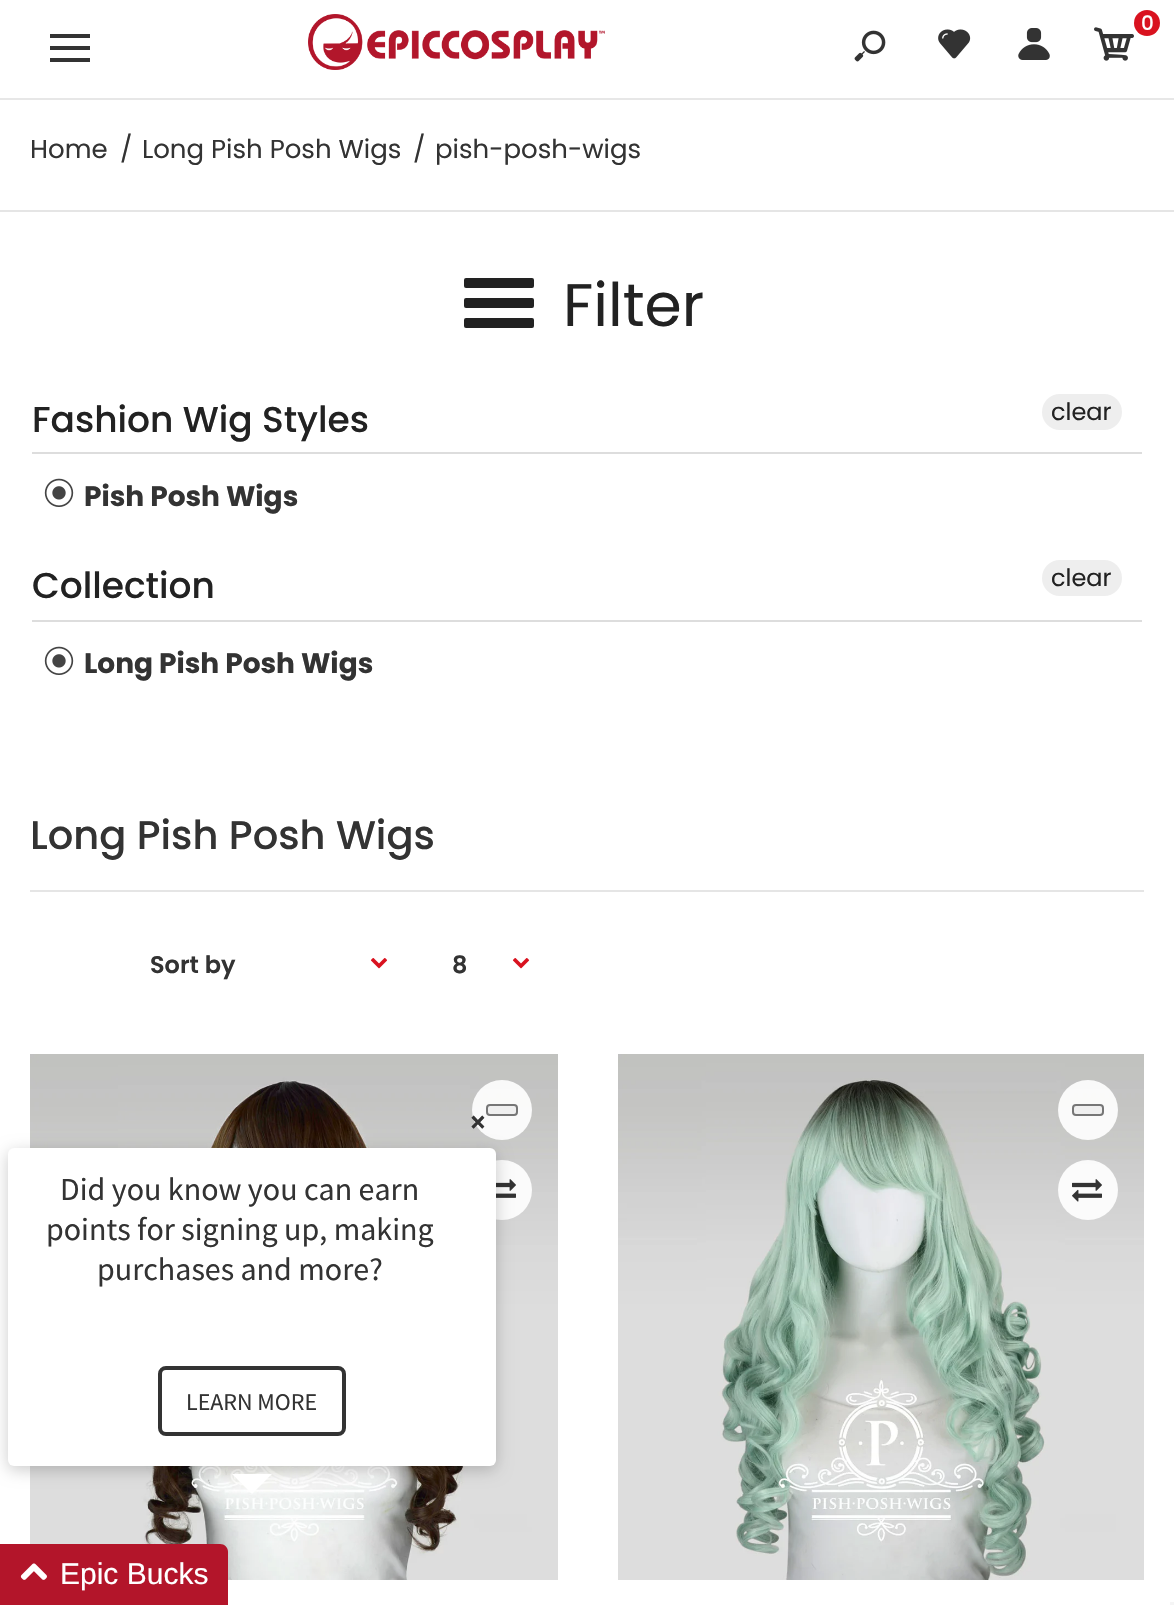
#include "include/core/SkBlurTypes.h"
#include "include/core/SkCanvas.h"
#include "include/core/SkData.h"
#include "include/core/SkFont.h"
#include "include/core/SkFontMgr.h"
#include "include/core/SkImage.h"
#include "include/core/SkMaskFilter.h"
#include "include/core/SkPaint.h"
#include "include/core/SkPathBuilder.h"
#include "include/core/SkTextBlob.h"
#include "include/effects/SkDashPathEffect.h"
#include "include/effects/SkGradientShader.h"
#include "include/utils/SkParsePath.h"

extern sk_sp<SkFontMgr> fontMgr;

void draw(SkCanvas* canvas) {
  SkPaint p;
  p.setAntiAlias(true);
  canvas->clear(SK_ColorWHITE);
  p.setColor(SkColorSetRGB(231, 231, 231));
  canvas->drawRect(SkRect::MakeLTRB(0, 98, 1174, 100), p);
  canvas->drawImageRect(SkImages::DeferredFromEncodedData(SkData::MakeFromFileName("images/1.png")), SkRect::MakeLTRB(308, 14, 605, 70), SkSamplingOptions());
  p.setColor(SkColorSetRGB(217, 18, 31));
  canvas->drawCircle(1147, 23, 13, p);
  canvas->drawImageRect(SkImages::DeferredFromEncodedData(SkData::MakeFromFileName("images/2.png")), SkRect::MakeLTRB(1094, 27, 1134, 61), SkSamplingOptions());
  p.setColor(SkColorSetRGB(51, 51, 51));
  canvas->drawRect(SkRect::MakeLTRB(50, 46, 90, 50), p);
  canvas->drawRect(SkRect::MakeLTRB(50, 34, 90, 38), p);
  canvas->drawRect(SkRect::MakeLTRB(50, 58, 90, 62), p);
  canvas->drawImageRect(SkImages::DeferredFromEncodedData(SkData::MakeFromFileName("images/3.png")), SkRect::MakeLTRB(854, 30, 886, 62), SkSamplingOptions());
  canvas->drawImageRect(SkImages::DeferredFromEncodedData(SkData::MakeFromFileName("images/4.png")), SkRect::MakeLTRB(938, 29, 971, 59), SkSamplingOptions());
  canvas->drawImageRect(SkImages::DeferredFromEncodedData(SkData::MakeFromFileName("images/5.png")), SkRect::MakeLTRB(1018, 28, 1050, 60), SkSamplingOptions());
  p.setColor(SkColorSetRGB(229, 229, 229));
  canvas->drawRect(SkRect::MakeLTRB(0, 210, 1174, 212), p);
  p.setColor(SkColorSetRGB(34, 34, 34));
  canvas->drawRoundRect(SkRect::MakeLTRB(464, 298, 534, 308), 2, 2, p);
  canvas->drawRoundRect(SkRect::MakeLTRB(464, 278, 534, 288), 2, 2, p);
  canvas->drawRoundRect(SkRect::MakeLTRB(464, 318, 534, 328), 2, 2, p);
  p.setColor(SkColorSetRGB(221, 221, 221));
  canvas->drawRect(SkRect::MakeLTRB(32, 452, 1142, 454), p);
  p.setColor(SkColorSetRGB(238, 238, 238));
  canvas->drawRoundRect(SkRect::MakeLTRB(1042, 394, 1122, 430), 18, 18, p);
  canvas->drawImageRect(SkImages::DeferredFromEncodedData(SkData::MakeFromFileName("images/6.png")), SkRect::MakeLTRB(44, 478, 74, 507), SkSamplingOptions());
  canvas->drawRoundRect(SkRect::MakeLTRB(1042, 560, 1122, 596), 18, 18, p);
  canvas->drawImageRect(SkImages::DeferredFromEncodedData(SkData::MakeFromFileName("images/6.png")), SkRect::MakeLTRB(44, 646, 74, 675), SkSamplingOptions());
  p.setColor(SkColorSetRGB(221, 221, 221));
  canvas->drawRect(SkRect::MakeLTRB(32, 620, 1142, 622), p);
  p.setColor(SkColorSetRGB(229, 229, 229));
  canvas->drawRect(SkRect::MakeLTRB(30, 890, 1144, 892), p);
  canvas->drawImageRect(SkImages::DeferredFromEncodedData(SkData::MakeFromFileName("images/7.png")), SkRect::MakeLTRB(370, 958, 388, 969), SkSamplingOptions());
  canvas->drawImageRect(SkImages::DeferredFromEncodedData(SkData::MakeFromFileName("images/7.png")), SkRect::MakeLTRB(512, 958, 530, 969), SkSamplingOptions());
  canvas->drawImageRect(SkImages::DeferredFromEncodedData(SkData::MakeFromFileName("images/8.png")), SkRect::MakeLTRB(30, 1054, 558, 1580), SkSamplingOptions());
  p.setColor(SkColorSetARGB(230, 255, 255, 255));
  canvas->drawCircle(502, 1110, 30, p);
  p.setColor(SkColorSetRGB(239, 239, 239));
  canvas->drawRoundRect(SkRect::MakeLTRB(487, 1105, 517, 1115), 3, 3, p);
  p.setStyle(SkPaint::kStroke_Style);
  p.setStrokeWidth(2);
  p.setColor(SkColorSetRGB(118, 118, 118));
  canvas->drawRoundRect(SkRect::MakeLTRB(487, 1105, 517, 1115), 3, 3, p);
  p.setStyle(SkPaint::kFill_Style);
  p.setColor(SkColorSetARGB(230, 255, 255, 255));
  canvas->drawCircle(502, 1190, 30, p);
  canvas->drawImageRect(SkImages::DeferredFromEncodedData(SkData::MakeFromFileName("images/9.png")), SkRect::MakeLTRB(496, 1179, 516, 1198), SkSamplingOptions());
  canvas->drawImageRect(SkImages::DeferredFromEncodedData(SkData::MakeFromFileName("images/10.png")), SkRect::MakeLTRB(618, 1054, 1144, 1580), SkSamplingOptions());
  canvas->drawCircle(1088, 1110, 30, p);
  p.setColor(SkColorSetRGB(239, 239, 239));
  canvas->drawRoundRect(SkRect::MakeLTRB(1073, 1105, 1103, 1115), 3, 3, p);
  p.setStyle(SkPaint::kStroke_Style);
  p.setColor(SkColorSetRGB(118, 118, 118));
  canvas->drawRoundRect(SkRect::MakeLTRB(1073, 1105, 1103, 1115), 3, 3, p);
  p.setStyle(SkPaint::kFill_Style);
  p.setColor(SkColorSetARGB(230, 255, 255, 255));
  canvas->drawCircle(1088, 1190, 30, p);
  canvas->drawImageRect(SkImages::DeferredFromEncodedData(SkData::MakeFromFileName("images/11.png")), SkRect::MakeLTRB(1072, 1179, 1102, 1202), SkSamplingOptions());
  p.setColor(SkColorSetARGB(51, 0, 0, 0));
  p.setMaskFilter(SkMaskFilter::MakeBlur(kNormal_SkBlurStyle, 8));
  canvas->drawRoundRect(SkRect::MakeLTRB(8, 1152, 496, 1470), 6, 6, p);
  p.setMaskFilter(nullptr);
  p.setColor(SK_ColorWHITE);
  canvas->drawRoundRect(SkRect::MakeLTRB(8, 1148, 496, 1466), 6, 6, p);
  p.setStyle(SkPaint::kStroke_Style);
  p.setStrokeWidth(4);
  p.setColor(SkColorSetRGB(51, 51, 51));
  canvas->drawRoundRect(SkRect::MakeLTRB(160, 1368, 344, 1434), 6, 6, p);
  p.setStyle(SkPaint::kFill_Style);
  p.setColor(SK_ColorWHITE);
  canvas->drawPath(SkPathBuilder().moveTo(232, 1474).lineTo(272, 1474).lineTo(252, 1494).close().detach(), p);
  p.setColor(SkColorSetRGB(179, 21, 42));
  canvas->drawPath(SkPathBuilder().moveTo(0, 1544).lineTo(220, 1544).cubicTo(224.5f, 1544, 228, 1547.5f, 228, 1552).lineTo(228, 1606).lineTo(0, 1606).close().detach(), p);
  canvas->drawImageRect(SkImages::DeferredFromEncodedData(SkData::MakeFromFileName("images/12.png")), SkRect::MakeLTRB(20, 1563, 47, 1580), SkSamplingOptions());
  p.setColor(SkColorSetRGB(245, 245, 245));
  canvas->drawRect(SkRect::MakeLTRB(1170, 1602, 1174, 1605), p);
  SkFont font1(fontMgr->matchFamilyStyle("Poppins", SkFontStyle(500, SkFontStyle::kNormal_Width, SkFontStyle::kUpright_Slant)), 20);
  font1.setSubpixel(true);
  p.setColor(SK_ColorWHITE);
  canvas->drawString("0", 1141, 30, font1, p);
  SkFont font2(fontMgr->matchFamilyStyle("Poppins", SkFontStyle::Normal()), 26);
  font2.setSubpixel(true);
  p.setColor(SkColorSetRGB(51, 51, 51));
  canvas->drawString("Home", 30, 158, font2, p);
  canvas->drawString("/", 120, 158, font2, p);
  canvas->drawString("Long Pish Posh Wigs", 142, 158, font2, p);
  canvas->drawString("/", 413, 158, font2, p);
  canvas->drawString("pish-posh-wigs", 435, 158, font2, p);
  SkFont font3(fontMgr->matchFamilyStyle("Poppins", SkFontStyle::Normal()), 60);
  font3.setSubpixel(true);
  p.setColor(SkColorSetRGB(34, 34, 34));
  canvas->drawString("Filter", 563, 326, font3, p);
  SkFont font4(fontMgr->matchFamilyStyle("Poppins", SkFontStyle(500, SkFontStyle::kNormal_Width, SkFontStyle::kUpright_Slant)), 36);
  font4.setSubpixel(true);
  canvas->drawString("Fashion Wig Styles", 32, 432, font4, p);
  SkFont font5(fontMgr->matchFamilyStyle("Poppins", SkFontStyle::Normal()), 24);
  font5.setSubpixel(true);
  canvas->drawString("clear", 1051, 420, font5, p);
  SkFont font6(fontMgr->matchFamilyStyle("Poppins", SkFontStyle::Bold()), 28);
  font6.setSubpixel(true);
  p.setColor(SkColorSetRGB(51, 51, 51));
  canvas->drawString("Pish Posh Wigs", 84, 506, font6, p);
  p.setColor(SkColorSetRGB(34, 34, 34));
  canvas->drawString("clear", 1051, 586, font5, p);
  p.setColor(SkColorSetRGB(51, 51, 51));
  canvas->drawString("Long Pish Posh Wigs", 84, 673, font6, p);
  p.setColor(SkColorSetRGB(34, 34, 34));
  canvas->drawString("Collection", 32, 598, font4, p);
  SkFont font7(fontMgr->matchFamilyStyle("Poppins", SkFontStyle(500, SkFontStyle::kNormal_Width, SkFontStyle::kUpright_Slant)), 40);
  font7.setSubpixel(true);
  p.setColor(SkColorSetRGB(51, 51, 51));
  canvas->drawString("Long Pish Posh Wigs", 30, 849, font7, p);
  SkFont font8(fontMgr->matchFamilyStyle("Poppins", SkFontStyle(600, SkFontStyle::kNormal_Width, SkFontStyle::kUpright_Slant)), 24);
  font8.setSubpixel(true);
  canvas->drawString("Sort by", 150, 973, font8, p);
  canvas->drawString("8", 452, 973, font8, p);
  SkFont font9(fontMgr->matchFamilyStyle("Source Sans Pro", SkFontStyle::Bold()), 30);
  font9.setSubpixel(true);
  canvas->drawString("×", 470, 1132, font9, p);
  SkFont font10(fontMgr->matchFamilyStyle("Source Sans Pro", SkFontStyle::Normal()), 32);
  font10.setSubpixel(true);
  canvas->drawString("Did you know you can earn", 60, 1200, font10, p);
  canvas->drawString("points for signing up, making", 46, 1240, font10, p);
  canvas->drawString("purchases and more?", 97, 1280, font10, p);
  SkFont font11(fontMgr->matchFamilyStyle("Source Sans Pro", SkFontStyle::Normal()), 24);
  font11.setSubpixel(true);
  canvas->drawString("LEARN MORE", 186, 1410, font11, p);
  SkFont font12(fontMgr->matchFamilyStyle("Liberation Sans", SkFontStyle::Normal()), 30);
  font12.setSubpixel(true);
  p.setColor(SK_ColorWHITE);
  canvas->drawString("Epic Bucks", 60, 1584, font12, p);
}
